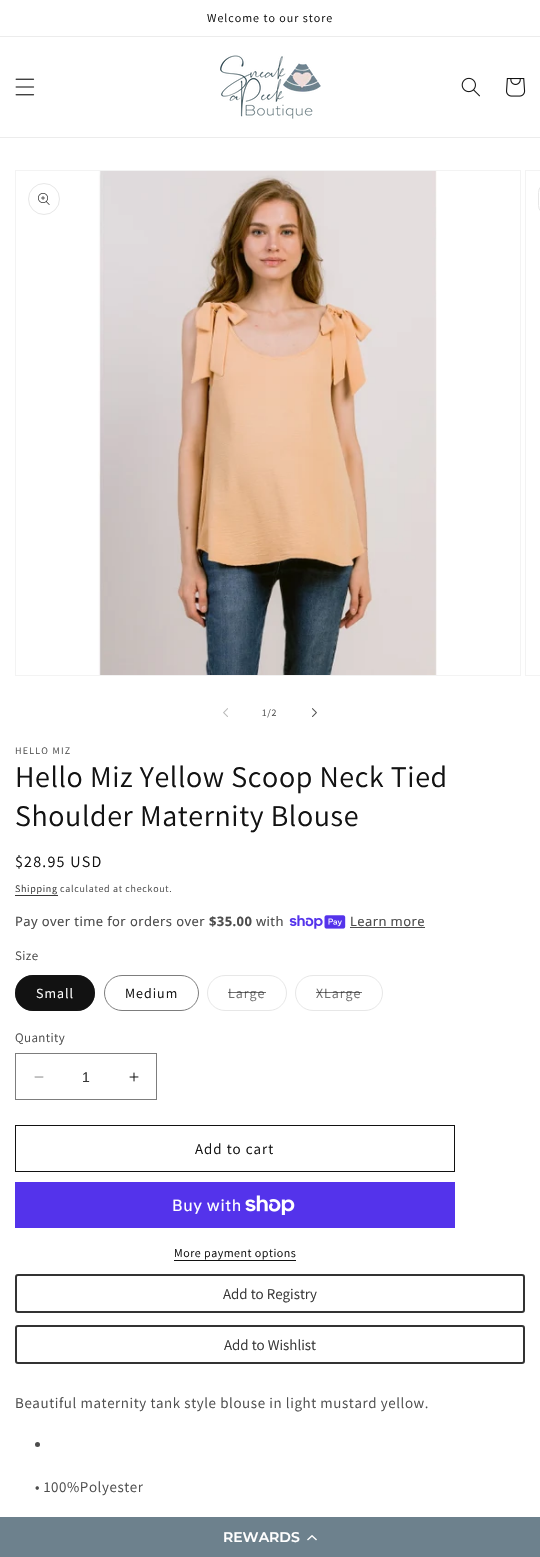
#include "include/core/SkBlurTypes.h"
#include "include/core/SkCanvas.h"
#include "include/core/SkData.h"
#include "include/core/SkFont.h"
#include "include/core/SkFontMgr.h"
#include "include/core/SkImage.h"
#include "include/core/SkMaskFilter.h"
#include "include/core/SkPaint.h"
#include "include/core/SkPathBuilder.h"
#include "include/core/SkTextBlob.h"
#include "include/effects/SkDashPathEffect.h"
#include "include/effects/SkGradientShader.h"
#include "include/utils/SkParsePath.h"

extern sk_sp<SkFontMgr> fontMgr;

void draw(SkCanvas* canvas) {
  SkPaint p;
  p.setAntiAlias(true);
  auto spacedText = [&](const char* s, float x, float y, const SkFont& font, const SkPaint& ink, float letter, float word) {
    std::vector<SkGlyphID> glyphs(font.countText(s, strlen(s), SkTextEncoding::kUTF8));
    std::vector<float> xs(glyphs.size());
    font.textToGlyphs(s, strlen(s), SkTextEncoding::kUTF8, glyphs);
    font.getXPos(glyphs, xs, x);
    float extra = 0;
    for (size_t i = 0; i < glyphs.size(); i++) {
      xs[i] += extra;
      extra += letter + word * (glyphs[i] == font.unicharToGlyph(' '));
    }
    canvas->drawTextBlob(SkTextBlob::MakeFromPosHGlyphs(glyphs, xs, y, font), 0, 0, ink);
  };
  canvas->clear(SK_ColorWHITE);
  p.setColor(SkColorSetRGB(236, 236, 236));
  canvas->drawRect(SkRect::MakeLTRB(0, 36, 540, 37), p);
  canvas->drawRect(SkRect::MakeLTRB(0, 137, 540, 138), p);
  canvas->drawImageRect(SkImages::DeferredFromEncodedData(SkData::MakeFromFileName("images/1.png")), SkRect::MakeLTRB(15, 78, 35, 96), SkSamplingOptions());
  canvas->drawImageRect(SkImages::DeferredFromEncodedData(SkData::MakeFromFileName("images/2.png")), SkRect::MakeLTRB(220, 55, 321, 119), SkSamplingOptions());
  canvas->drawImageRect(SkImages::DeferredFromEncodedData(SkData::MakeFromFileName("images/3.png")), SkRect::MakeLTRB(461, 77, 480, 97), SkSamplingOptions());
  canvas->drawImageRect(SkImages::DeferredFromEncodedData(SkData::MakeFromFileName("images/4.png")), SkRect::MakeLTRB(506, 78, 526, 97), SkSamplingOptions());
  p.setStyle(SkPaint::kStroke_Style);
  p.setStrokeWidth(1);
  p.setColor(SkColorSetRGB(243, 243, 243));
  canvas->drawRect(SkRect::MakeLTRB(15.5f, 170.5f, 520.5f, 675.5f), p);
  p.setColor(SkColorSetRGB(231, 231, 231));
  canvas->drawCircle(44, 199, 15.5f, p);
  canvas->drawImageRect(SkImages::DeferredFromEncodedData(SkData::MakeFromFileName("images/5.png")), SkRect::MakeLTRB(38, 193, 50, 205), SkSamplingOptions());
  canvas->drawImageRect(SkImages::DeferredFromEncodedData(SkData::MakeFromFileName("images/6.png")), SkRect::MakeLTRB(98, 171, 437, 675), SkSamplingOptions());
  p.setColor(SkColorSetRGB(243, 243, 243));
  canvas->drawRect(SkRect::MakeLTRB(525.5f, 170.5f, 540.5f, 675.5f), p);
  p.setColor(SkColorSetRGB(231, 231, 231));
  canvas->drawRoundRect(SkRect::MakeLTRB(538.5f, 183.5f, 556.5f, 214.5f), 15.5f, 15.5f, p);
  canvas->drawImageRect(SkImages::DeferredFromEncodedData(SkData::MakeFromFileName("images/7.png")), SkRect::MakeLTRB(223, 708, 228, 717), SkSamplingOptions());
  canvas->drawImageRect(SkImages::DeferredFromEncodedData(SkData::MakeFromFileName("images/8.png")), SkRect::MakeLTRB(312, 708, 317, 717), SkSamplingOptions());
  p.setStyle(SkPaint::kFill_Style);
  p.setColor(SkColorSetRGB(54, 54, 54));
  canvas->drawRect(SkRect::MakeLTRB(15, 895, 58, 896), p);
  canvas->drawImageRect(SkImages::DeferredFromEncodedData(SkData::MakeFromFileName("images/9.png")), SkRect::MakeLTRB(289, 915, 346, 929), SkSamplingOptions());
  p.setColor(SkColorSetRGB(77, 77, 77));
  canvas->drawRect(SkRect::MakeLTRB(350, 927, 425, 928), p);
  p.setColor(SkColorSetRGB(18, 18, 18));
  canvas->drawRoundRect(SkRect::MakeLTRB(15, 975, 95, 1011), 18, 18, p);
  p.setStyle(SkPaint::kStroke_Style);
  p.setColor(SkColorSetARGB(140, 18, 18, 18));
  canvas->drawRoundRect(SkRect::MakeLTRB(15.5f, 975.5f, 94.5f, 1010.5f), 17.5f, 17.5f, p);
  p.setColor(SkColorSetRGB(125, 125, 125));
  canvas->drawRoundRect(SkRect::MakeLTRB(104.5f, 975.5f, 198.5f, 1010.5f), 17.5f, 17.5f, p);
  p.setColor(SkColorSetRGB(231, 231, 231));
  canvas->drawRoundRect(SkRect::MakeLTRB(207.5f, 975.5f, 286.5f, 1010.5f), 17.5f, 17.5f, p);
  canvas->drawRoundRect(SkRect::MakeLTRB(295.5f, 975.5f, 382.5f, 1010.5f), 17.5f, 17.5f, p);
  canvas->drawImageRect(SkImages::DeferredFromEncodedData(SkData::MakeFromFileName("images/10.png")), SkRect::MakeLTRB(34, 1076, 44, 1078), SkSamplingOptions());
  canvas->drawImageRect(SkImages::DeferredFromEncodedData(SkData::MakeFromFileName("images/11.png")), SkRect::MakeLTRB(129, 1072, 139, 1082), SkSamplingOptions());
  p.setColor(SkColorSetRGB(125, 125, 125));
  canvas->drawRect(SkRect::MakeLTRB(15.5f, 1053.5f, 156.5f, 1099.5f), p);
  p.setColor(SkColorSetRGB(18, 18, 18));
  canvas->drawRect(SkRect::MakeLTRB(15.5f, 1125.5f, 454.5f, 1171.5f), p);
  p.setStyle(SkPaint::kFill_Style);
  p.setColor(SkColorSetRGB(84, 51, 235));
  canvas->drawRect(SkRect::MakeLTRB(15, 1182, 455, 1228), p);
  canvas->drawImageRect(SkImages::DeferredFromEncodedData(SkData::MakeFromFileName("images/12.png")), SkRect::MakeLTRB(245, 1195, 295, 1215), SkSamplingOptions());
  p.setColor(SkColorSetRGB(18, 18, 18));
  canvas->drawRect(SkRect::MakeLTRB(174, 1260, 296, 1261), p);
  p.setStyle(SkPaint::kStroke_Style);
  p.setStrokeWidth(2);
  p.setColor(SkColorSetRGB(51, 51, 51));
  canvas->drawRoundRect(SkRect::MakeLTRB(16, 1275, 524, 1312), 2, 2, p);
  canvas->drawRoundRect(SkRect::MakeLTRB(16, 1326, 524, 1363), 2, 2, p);
  p.setStyle(SkPaint::kFill_Style);
  p.setColor(SkColorSetRGB(77, 77, 77));
  canvas->drawCircle(37.5f, 1444.5f, 2.5f, p);
  p.setColor(SkColorSetRGB(109, 129, 141));
  canvas->drawRect(SkRect::MakeLTRB(0, 1517, 540, 1557), p);
  canvas->drawImageRect(SkImages::DeferredFromEncodedData(SkData::MakeFromFileName("images/13.png")), SkRect::MakeLTRB(307, 1535, 317, 1541), SkSamplingOptions());
  SkFont font1(fontMgr->matchFamilyStyle("Assistant", SkFontStyle::Normal()), 12);
  font1.setSubpixel(true);
  p.setColor(SkColorSetRGB(18, 18, 18));
  spacedText("Welcome to our store", 207, 22, font1, p, 1, 0);
  SkFont font2(fontMgr->matchFamilyStyle("Assistant", SkFontStyle::Normal()), 10);
  font2.setSubpixel(true);
  p.setColor(SkColorSetRGB(77, 77, 77));
  spacedText("1/2", 262, 716, font2, p, 0.7f, 0);
  spacedText("HELLO MIZ", 15, 754, font2, p, 1.25f, 0);
  SkFont font3(fontMgr->matchFamilyStyle("Assistant", SkFontStyle::Normal()), 30);
  font3.setSubpixel(true);
  p.setColor(SkColorSetRGB(18, 18, 18));
  spacedText("Hello Miz Yellow Scoop Neck Tied", 15, 787, font3, p, 0.6f, 0);
  spacedText("Shoulder Maternity Blouse", 15, 826, font3, p, 0.6f, 0);
  SkFont font4(fontMgr->matchFamilyStyle("Assistant", SkFontStyle::Normal()), 16);
  font4.setSubpixel(true);
  spacedText("$28.95 USD", 15, 867, font4, p, 1.25f, 0);
  p.setColor(SkColorSetRGB(54, 54, 54));
  spacedText("Shipping", 15, 892, font2, p, 0.7f, 0);
  p.setColor(SkColorSetRGB(77, 77, 77));
  spacedText("calculated at checkout.", 60, 892, font2, p, 0.7f, 0);
  SkFont font5(fontMgr->matchFamilyStyle("Noto Sans", SkFontStyle::Normal()), 13);
  font5.setSubpixel(true);
  spacedText("Pay over time for orders over", 15, 926, font5, p, 0.4f, 0);
  SkFont font6(fontMgr->matchFamilyStyle("Noto Sans", SkFontStyle::Bold()), 13);
  font6.setSubpixel(true);
  spacedText("$35.00", 209, 926, font6, p, 0.4f, 0);
  spacedText("with", 256, 926, font5, p, 0.4f, 0);
  spacedText("Learn more", 350, 926, font5, p, 0.4f, 0);
  SkFont font7(fontMgr->matchFamilyStyle("Assistant", SkFontStyle::Normal()), 13);
  font7.setSubpixel(true);
  spacedText("Size", 15, 960, font7, p, 0.4f, 0);
  SkFont font8(fontMgr->matchFamilyStyle("Assistant", SkFontStyle::Normal()), 14);
  font8.setSubpixel(true);
  p.setColor(SK_ColorWHITE);
  spacedText("Small", 36, 998, font8, p, 1, 0);
  p.setColor(SkColorSetRGB(18, 18, 18));
  spacedText("Medium", 125, 998, font8, p, 1, 0);
  p.setColor(SkColorSetRGB(113, 113, 113));
  spacedText("Large", 228, 998, font8, p, 1, 0);
  p.setColor(SkColorSetARGB(153, 18, 18, 18));
  canvas->drawRect(SkRect::MakeLTRB(228, 992, 266, 993), p);
  p.setColor(SkColorSetRGB(113, 113, 113));
  spacedText("XLarge", 316, 998, font8, p, 1, 0);
  p.setColor(SkColorSetARGB(153, 18, 18, 18));
  canvas->drawRect(SkRect::MakeLTRB(316, 992, 362, 993), p);
  p.setColor(SkColorSetRGB(77, 77, 77));
  spacedText("Quantity", 15, 1042, font7, p, 0.4f, 0);
  SkFont font9(fontMgr->matchFamilyStyle("Liberation Sans", SkFontStyle::Normal()), 14);
  font9.setSubpixel(true);
  p.setColor(SkColorSetRGB(54, 54, 54));
  canvas->drawString("1", 82, 1082, font9, p);
  SkFont font10(fontMgr->matchFamilyStyle("Assistant", SkFontStyle::Normal()), 15);
  font10.setSubpixel(true);
  p.setColor(SkColorSetRGB(18, 18, 18));
  spacedText("Add to cart", 195, 1154, font10, p, 1, 0);
  SkFont font11(fontMgr->matchFamilyStyle("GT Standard", SkFontStyle::Normal()), 16);
  font11.setSubpixel(true);
  p.setColor(SK_ColorWHITE);
  spacedText("Buy with", 172, 1211, font11, p, 0.6f, 0);
  p.setColor(SkColorSetRGB(18, 18, 18));
  spacedText("More payment options", 174, 1257, font1, p, 0.5f, 0);
  p.setColor(SkColorSetRGB(54, 54, 54));
  canvas->drawString("Add to Registry", 223, 1299, font10, p);
  canvas->drawString("Add to Wishlist", 224, 1350, font10, p);
  p.setColor(SkColorSetRGB(77, 77, 77));
  spacedText("Beautiful maternity tank style blouse in light mustard yellow.", 15, 1408, font10, p, 0.6f, 0);
  spacedText("• 100%Polyester", 35, 1492, font10, p, 0.6f, 0);
  SkFont font12(fontMgr->matchFamilyStyle("Montserrat", SkFontStyle(100, SkFontStyle::kNormal_Width, SkFontStyle::kUpright_Slant)), 14);
  font12.setSubpixel(true);
  p.setColor(SK_ColorWHITE);
  canvas->drawString("REWARDS", 223, 1542, font12, p);
}
